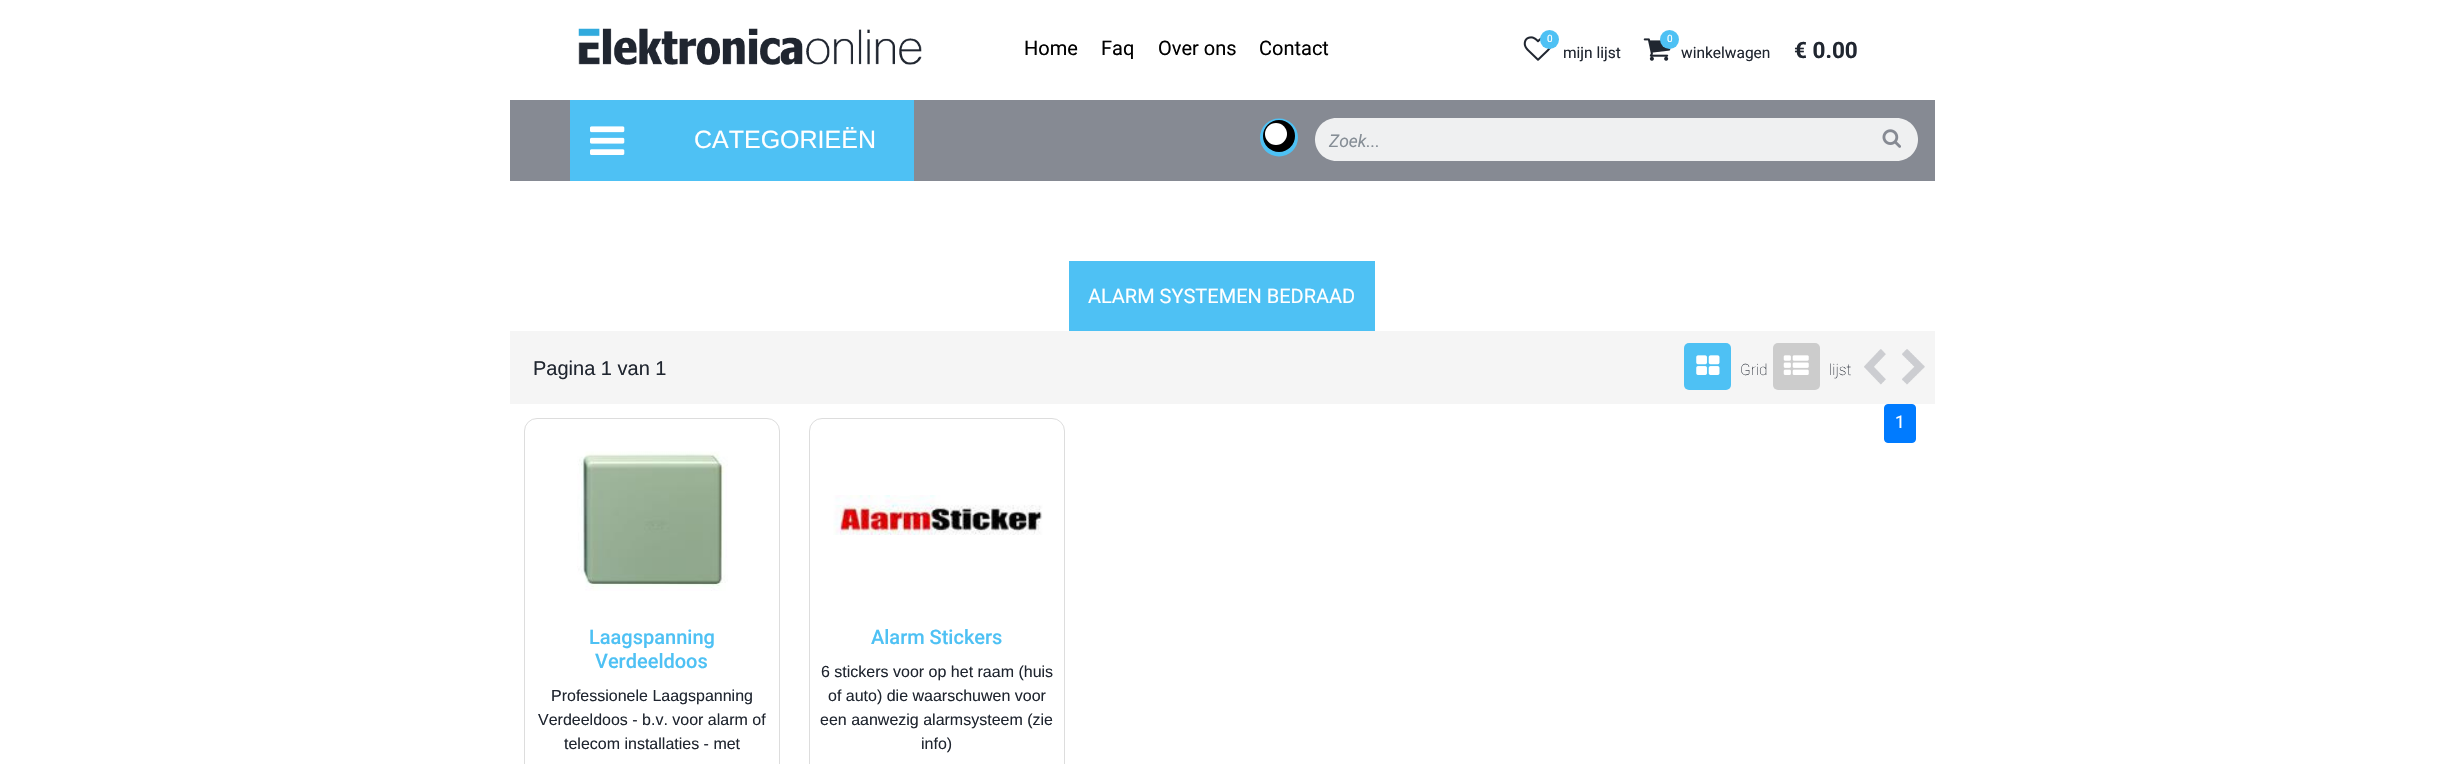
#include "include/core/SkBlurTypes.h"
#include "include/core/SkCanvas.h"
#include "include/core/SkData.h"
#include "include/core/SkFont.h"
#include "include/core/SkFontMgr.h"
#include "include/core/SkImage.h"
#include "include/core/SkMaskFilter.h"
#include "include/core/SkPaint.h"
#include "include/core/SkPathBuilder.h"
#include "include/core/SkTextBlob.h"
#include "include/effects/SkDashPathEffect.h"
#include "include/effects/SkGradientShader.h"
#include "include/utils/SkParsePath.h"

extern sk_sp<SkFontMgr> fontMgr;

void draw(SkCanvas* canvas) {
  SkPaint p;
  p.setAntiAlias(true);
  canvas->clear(SK_ColorWHITE);
  canvas->drawImageRect(SkImages::DeferredFromEncodedData(SkData::MakeFromFileName("images/1.png")), SkRect::MakeLTRB(578, 28, 922, 65), SkSamplingOptions());
  canvas->drawImageRect(SkImages::DeferredFromEncodedData(SkData::MakeFromFileName("images/2.png")), SkRect::MakeLTRB(1523, 36, 1551, 61), SkSamplingOptions());
  p.setColor(SkColorSetRGB(78, 193, 244));
  canvas->drawCircle(1549.5f, 39.5f, 9.5f, p);
  canvas->drawImageRect(SkImages::DeferredFromEncodedData(SkData::MakeFromFileName("images/3.png")), SkRect::MakeLTRB(1643, 38, 1671, 61), SkSamplingOptions());
  canvas->drawCircle(1669.5f, 39.5f, 9.5f, p);
  p.setColor(SkColorSetRGB(134, 138, 147));
  canvas->drawRect(SkRect::MakeLTRB(510, 100, 1935, 181), p);
  p.setColor(SkColorSetRGB(78, 193, 244));
  canvas->drawRect(SkRect::MakeLTRB(570, 100, 914, 181), p);
  canvas->drawImageRect(SkImages::DeferredFromEncodedData(SkData::MakeFromFileName("images/4.png")), SkRect::MakeLTRB(590, 126, 625, 155), SkSamplingOptions());
  canvas->drawCircle(1279, 137.5f, 19, p);
  p.setColor(SK_ColorBLACK);
  canvas->drawCircle(1279, 136, 16, p);
  p.setColor(SK_ColorWHITE);
  canvas->drawCircle(1276, 134, 11, p);
  p.setColor(SkColorSetRGB(239, 240, 241));
  canvas->drawPath(SkPathBuilder().moveTo(1336.5f, 118).lineTo(1868, 118).lineTo(1868, 161).lineTo(1336.5f, 161).cubicTo(1324.5f, 161, 1315, 151.5f, 1315, 139.5f).cubicTo(1315, 127.5f, 1324.5f, 118, 1336.5f, 118).close().detach(), p);
  canvas->drawPath(SkPathBuilder().moveTo(1866, 118).lineTo(1896.5f, 118).cubicTo(1908.5f, 118, 1918, 127.5f, 1918, 139.5f).cubicTo(1918, 151.5f, 1908.5f, 161, 1896.5f, 161).lineTo(1866, 161).close().detach(), p);
  canvas->drawImageRect(SkImages::DeferredFromEncodedData(SkData::MakeFromFileName("images/5.png")), SkRect::MakeLTRB(1882, 129, 1901, 148), SkSamplingOptions());
  p.setColor(SkColorSetRGB(78, 193, 244));
  canvas->drawRect(SkRect::MakeLTRB(1069, 261, 1375, 331), p);
  p.setColor(SkColorSetRGB(245, 245, 245));
  canvas->drawRect(SkRect::MakeLTRB(510, 331, 1935, 404), p);
  p.setColor(SkColorSetRGB(78, 193, 244));
  canvas->drawRoundRect(SkRect::MakeLTRB(1684, 343, 1731, 390), 5, 5, p);
  canvas->drawImageRect(SkImages::DeferredFromEncodedData(SkData::MakeFromFileName("images/6.png")), SkRect::MakeLTRB(1696, 355, 1720, 375), SkSamplingOptions());
  p.setColor(SkColorSetRGB(204, 204, 204));
  canvas->drawRoundRect(SkRect::MakeLTRB(1773, 343, 1820, 390), 5, 5, p);
  canvas->drawImageRect(SkImages::DeferredFromEncodedData(SkData::MakeFromFileName("images/7.png")), SkRect::MakeLTRB(1783, 355, 1809, 375), SkSamplingOptions());
  canvas->drawImageRect(SkImages::DeferredFromEncodedData(SkData::MakeFromFileName("images/8.png")), SkRect::MakeLTRB(1864, 349, 1886, 385), SkSamplingOptions());
  canvas->drawImageRect(SkImages::DeferredFromEncodedData(SkData::MakeFromFileName("images/9.png")), SkRect::MakeLTRB(1902, 349, 1925, 385), SkSamplingOptions());
  p.setColor(SkColorSetRGB(0, 123, 255));
  canvas->drawRoundRect(SkRect::MakeLTRB(1884.5f, 404.5f, 1915.5f, 442.5f), 3.5f, 3.5f, p);
  p.setStyle(SkPaint::kStroke_Style);
  p.setStrokeWidth(1);
  canvas->drawRoundRect(SkRect::MakeLTRB(1884.5f, 404.5f, 1915.5f, 442.5f), 3.5f, 3.5f, p);
  p.setColor(SkColorSetRGB(221, 221, 221));
  canvas->drawRoundRect(SkRect::MakeLTRB(524.5f, 418.5f, 779.5f, 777.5f), 12.5f, 12.5f, p);
  canvas->drawImageRect(SkImages::DeferredFromEncodedData(SkData::MakeFromFileName("images/10.png")), SkRect::MakeLTRB(577, 451, 728, 591), SkSamplingOptions());
  canvas->drawRoundRect(SkRect::MakeLTRB(809.5f, 418.5f, 1064.5f, 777.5f), 12.5f, 12.5f, p);
  canvas->drawImageRect(SkImages::DeferredFromEncodedData(SkData::MakeFromFileName("images/11.png")), SkRect::MakeLTRB(833, 495, 1043, 535), SkSamplingOptions());
  SkFont font1(fontMgr->matchFamilyStyle("Roboto", SkFontStyle::Normal()), 20);
  font1.setSubpixel(true);
  p.setStyle(SkPaint::kFill_Style);
  p.setColor(SK_ColorBLACK);
  canvas->drawString("Home", 1024, 55, font1, p);
  canvas->drawString("Faq", 1101, 55, font1, p);
  canvas->drawString("Over ons", 1158, 55, font1, p);
  canvas->drawString("Contact", 1259, 55, font1, p);
  SkFont font2(fontMgr->matchFamilyStyle("Roboto", SkFontStyle::Normal()), 10);
  font2.setSubpixel(true);
  p.setColor(SK_ColorWHITE);
  canvas->drawString("0", 1547, 42, font2, p);
  SkFont font3(fontMgr->matchFamilyStyle("Roboto", SkFontStyle::Normal()), 15.5f);
  font3.setSubpixel(true);
  p.setColor(SkColorSetRGB(32, 38, 48));
  canvas->drawString("mijn lijst", 1563, 58, font3, p);
  p.setColor(SK_ColorWHITE);
  canvas->drawString("0", 1667, 42, font2, p);
  p.setColor(SkColorSetRGB(32, 38, 48));
  canvas->drawString("winkelwagen", 1681, 58, font3, p);
  SkFont font4(fontMgr->matchFamilyStyle("Roboto", SkFontStyle::Bold()), 22.5f);
  font4.setSubpixel(true);
  canvas->drawString("€ 0.00", 1794, 58, font4, p);
  SkFont font5(fontMgr->matchFamilyStyle("Liberation Sans", SkFontStyle::Normal()), 25);
  font5.setSubpixel(true);
  p.setColor(SK_ColorWHITE);
  canvas->drawString("CATEGORIEËN", 694, 148, font5, p);
  SkFont font6(fontMgr->matchFamilyStyle("Roboto", SkFontStyle::Italic()), 17.5f);
  font6.setSubpixel(true);
  p.setColor(SkColorSetRGB(134, 142, 150));
  canvas->drawString("Zoek...", 1329, 147, font6, p);
  p.setColor(SK_ColorWHITE);
  canvas->drawString("ALARM SYSTEMEN BEDRAAD", 1088, 303, font1, p);
  SkFont font7(fontMgr->matchFamilyStyle("Liberation Sans", SkFontStyle::Normal()), 20);
  font7.setSubpixel(true);
  p.setColor(SkColorSetRGB(32, 38, 48));
  canvas->drawString("Pagina 1 van 1", 533, 375, font7, p);
  SkFont font8(fontMgr->matchFamilyStyle("Roboto", SkFontStyle(200, SkFontStyle::kNormal_Width, SkFontStyle::kUpright_Slant)), 15.5f);
  font8.setSubpixel(true);
  canvas->drawString("Grid", 1740, 375, font8, p);
  canvas->drawString("lijst", 1829, 375, font8, p);
  SkFont font9(fontMgr->matchFamilyStyle("Roboto", SkFontStyle::Normal()), 17.5f);
  font9.setSubpixel(true);
  p.setColor(SK_ColorWHITE);
  canvas->drawString("1", 1895, 428, font9, p);
  SkFont font10(fontMgr->matchFamilyStyle("Roboto", SkFontStyle(500, SkFontStyle::kNormal_Width, SkFontStyle::kUpright_Slant)), 20);
  font10.setSubpixel(true);
  p.setColor(SkColorSetRGB(78, 193, 244));
  canvas->drawString("Laagspanning", 589, 644, font10, p);
  canvas->drawString("Verdeeldoos", 595, 668, font10, p);
  SkFont font11(fontMgr->matchFamilyStyle("Liberation Sans", SkFontStyle::Normal()), 16);
  font11.setSubpixel(true);
  p.setColor(SkColorSetRGB(32, 38, 48));
  canvas->drawString("Professionele Laagspanning", 551, 701, font11, p);
  canvas->drawString("Verdeeldoos - b.v. voor alarm of", 538, 725, font11, p);
  canvas->drawString("telecom installaties - met", 564, 749, font11, p);
  p.setColor(SkColorSetRGB(78, 193, 244));
  canvas->drawString("Alarm Stickers", 871, 644, font10, p);
  p.setColor(SkColorSetRGB(32, 38, 48));
  canvas->drawString("6 stickers voor op het raam (huis", 821, 677, font11, p);
  canvas->drawString("of auto) die waarschuwen voor", 828, 701, font11, p);
  canvas->drawString("een aanwezig alarmsysteem (zie", 820, 725, font11, p);
  canvas->drawString("info)", 921, 749, font11, p);
}
